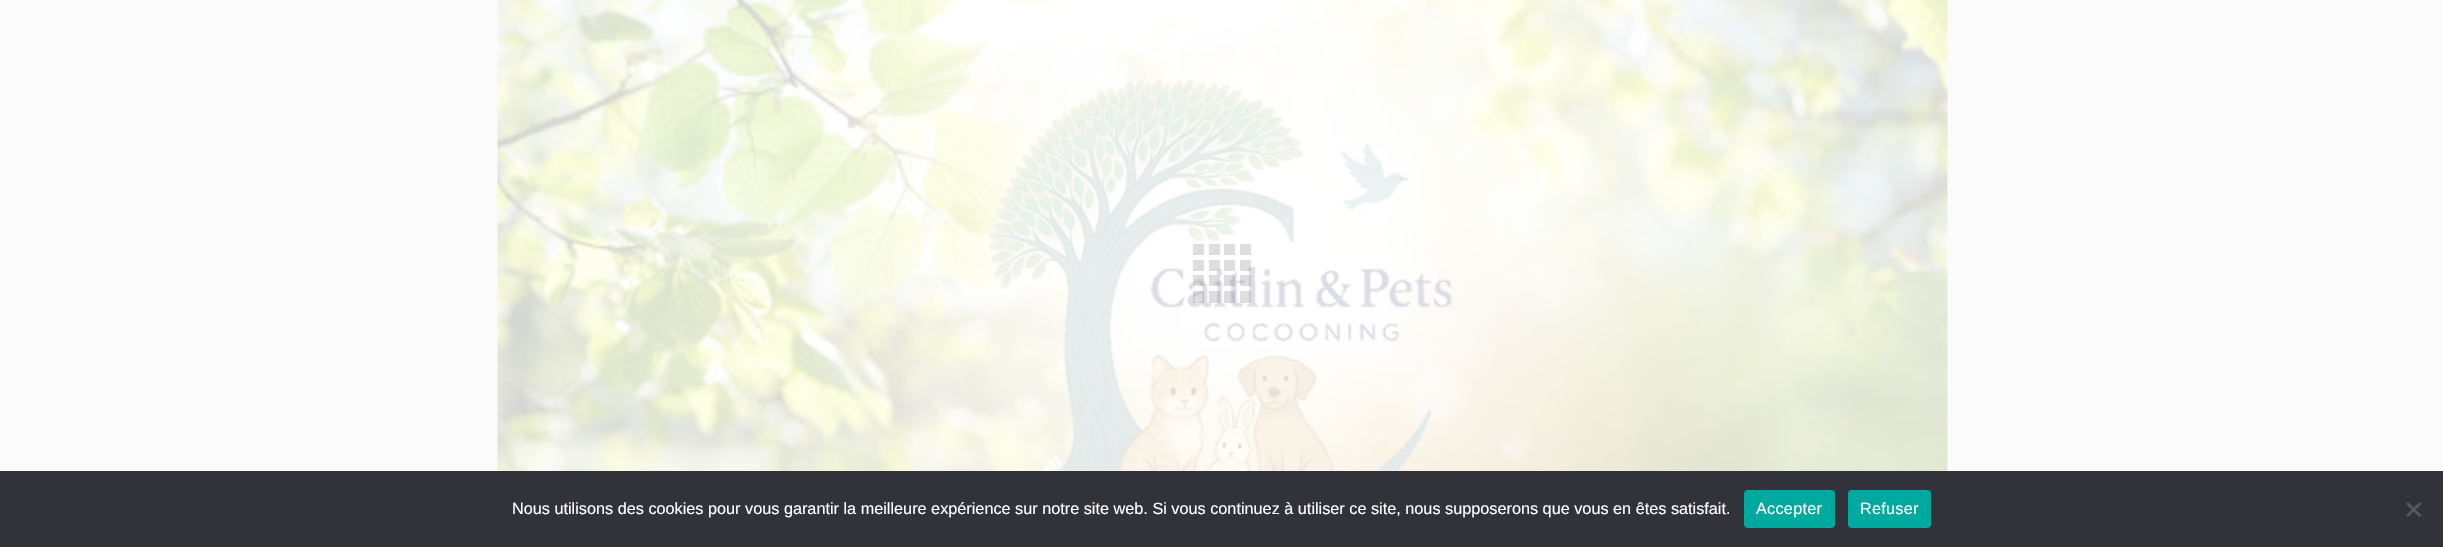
#include "include/core/SkBlurTypes.h"
#include "include/core/SkCanvas.h"
#include "include/core/SkData.h"
#include "include/core/SkFont.h"
#include "include/core/SkFontMgr.h"
#include "include/core/SkImage.h"
#include "include/core/SkMaskFilter.h"
#include "include/core/SkPaint.h"
#include "include/core/SkPathBuilder.h"
#include "include/core/SkTextBlob.h"
#include "include/effects/SkDashPathEffect.h"
#include "include/effects/SkGradientShader.h"
#include "include/utils/SkParsePath.h"

extern sk_sp<SkFontMgr> fontMgr;

void draw(SkCanvas* canvas) {
  SkPaint p;
  p.setAntiAlias(true);
  auto spacedText = [&](const char* s, float x, float y, const SkFont& font, const SkPaint& ink, float letter, float word) {
    std::vector<SkGlyphID> glyphs(font.countText(s, strlen(s), SkTextEncoding::kUTF8));
    std::vector<float> xs(glyphs.size());
    font.textToGlyphs(s, strlen(s), SkTextEncoding::kUTF8, glyphs);
    font.getXPos(glyphs, xs, x);
    float extra = 0;
    for (size_t i = 0; i < glyphs.size(); i++) {
      xs[i] += extra;
      extra += letter + word * (glyphs[i] == font.unicharToGlyph(' '));
    }
    canvas->drawTextBlob(SkTextBlob::MakeFromPosHGlyphs(glyphs, xs, y, font), 0, 0, ink);
  };
  canvas->clear(SkColorSetRGB(252, 251, 251));
  p.setColor(SK_ColorWHITE);
  canvas->drawRect(SkRect::MakeLTRB(1947, 0, 1948, 471), p);
  canvas->drawImageRect(SkImages::DeferredFromEncodedData(SkData::MakeFromFileName("images/1.png")), SkRect::MakeLTRB(497, 0, 1948, 471), SkSamplingOptions());
  canvas->drawImageRect(SkImages::DeferredFromEncodedData(SkData::MakeFromFileName("images/2.png")), SkRect::MakeLTRB(984, 77, 1453, 471), SkSamplingOptions());
  p.setColor(SkColorSetRGB(222, 222, 222));
  canvas->drawRect(SkRect::MakeLTRB(1193, 244, 1204, 255), p);
  canvas->drawRect(SkRect::MakeLTRB(1209, 244, 1220, 255), p);
  canvas->drawRect(SkRect::MakeLTRB(1224, 244, 1235, 255), p);
  canvas->drawRect(SkRect::MakeLTRB(1240, 244, 1251, 255), p);
  canvas->drawRect(SkRect::MakeLTRB(1193, 260, 1204, 271), p);
  p.setColor(SkColorSetARGB(41, 51, 51, 51));
  canvas->drawRect(SkRect::MakeLTRB(1209, 260, 1220, 271), p);
  p.setColor(SkColorSetRGB(222, 222, 222));
  canvas->drawRect(SkRect::MakeLTRB(1224, 260, 1235, 271), p);
  p.setColor(SkColorSetARGB(41, 51, 51, 51));
  canvas->drawRect(SkRect::MakeLTRB(1240, 260, 1251, 271), p);
  canvas->drawRect(SkRect::MakeLTRB(1193, 275, 1204, 286), p);
  canvas->drawRect(SkRect::MakeLTRB(1209, 275, 1220, 286), p);
  canvas->drawRect(SkRect::MakeLTRB(1224, 275, 1235, 286), p);
  canvas->drawRect(SkRect::MakeLTRB(1240, 275, 1251, 286), p);
  canvas->drawRect(SkRect::MakeLTRB(1193, 291, 1204, 303), p);
  canvas->drawRect(SkRect::MakeLTRB(1209, 291, 1220, 303), p);
  canvas->drawRect(SkRect::MakeLTRB(1224, 291, 1235, 303), p);
  canvas->drawRect(SkRect::MakeLTRB(1240, 291, 1251, 303), p);
  p.setColor(SkColorSetRGB(50, 50, 58));
  canvas->drawRect(SkRect::MakeLTRB(0, 471, 2443, 547), p);
  p.setColor(SkColorSetRGB(0, 169, 157));
  canvas->drawRoundRect(SkRect::MakeLTRB(1744, 490, 1835, 528), 4, 4, p);
  canvas->drawRoundRect(SkRect::MakeLTRB(1848, 490, 1931, 528), 4, 4, p);
  p.setColor(SkColorSetRGB(89, 89, 93));
  canvas->drawPath(SkPathBuilder().moveTo(2419.5f, 502).lineTo(2421.5f, 504).lineTo(2408, 517).lineTo(2406, 515.5f).close().detach(), p);
  canvas->drawPath(SkPathBuilder().moveTo(2406, 504).lineTo(2408, 502).lineTo(2421.5f, 515.5f).lineTo(2419.5f, 517).close().detach(), p);
  SkFont font1(fontMgr->matchFamilyStyle("Liberation Sans", SkFontStyle::Normal()), 16.25f);
  font1.setSubpixel(true);
  p.setColor(SK_ColorWHITE);
  canvas->drawString("Nous utilisons des cookies pour vous garantir la meilleure expérience sur notre site web. Si vous continuez à utiliser ce site, nous supposerons que vous en êtes satisfait.", 512, 514, font1, p);
  spacedText("Accepter", 1756, 514, font1, p, 0.25f, 0);
  spacedText("Refuser", 1860, 514, font1, p, 0.25f, 0);
}
